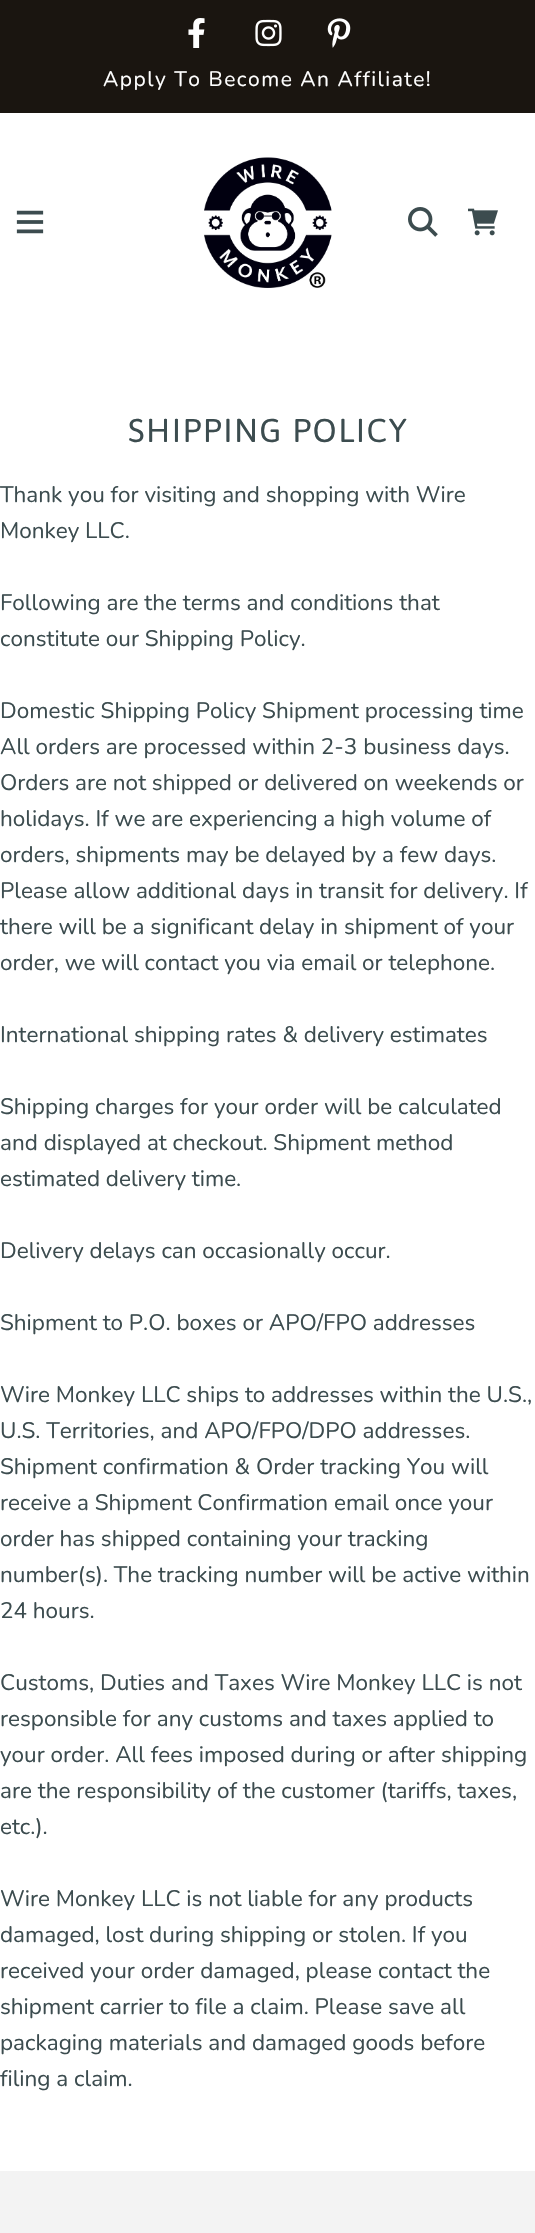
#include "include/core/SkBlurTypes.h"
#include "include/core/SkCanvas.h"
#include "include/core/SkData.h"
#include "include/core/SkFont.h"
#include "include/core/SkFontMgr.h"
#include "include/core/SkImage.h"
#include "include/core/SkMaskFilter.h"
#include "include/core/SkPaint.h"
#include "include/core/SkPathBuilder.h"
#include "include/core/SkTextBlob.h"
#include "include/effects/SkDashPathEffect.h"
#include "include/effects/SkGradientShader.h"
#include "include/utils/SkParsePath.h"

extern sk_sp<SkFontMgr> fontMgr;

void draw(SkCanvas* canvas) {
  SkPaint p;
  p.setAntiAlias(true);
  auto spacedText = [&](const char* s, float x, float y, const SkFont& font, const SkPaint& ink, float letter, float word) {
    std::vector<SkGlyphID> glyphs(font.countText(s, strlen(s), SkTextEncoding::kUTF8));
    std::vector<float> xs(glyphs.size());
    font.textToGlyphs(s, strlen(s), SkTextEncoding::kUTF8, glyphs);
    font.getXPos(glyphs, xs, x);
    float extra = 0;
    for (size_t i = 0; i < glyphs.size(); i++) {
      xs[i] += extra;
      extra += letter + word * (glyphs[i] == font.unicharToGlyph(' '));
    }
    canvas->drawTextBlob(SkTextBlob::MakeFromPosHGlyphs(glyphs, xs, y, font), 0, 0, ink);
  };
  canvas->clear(SK_ColorWHITE);
  p.setColor(SkColorSetRGB(26, 21, 16));
  canvas->drawRect(SkRect::MakeLTRB(0, 0, 535, 113), p);
  canvas->drawImageRect(SkImages::DeferredFromEncodedData(SkData::MakeFromFileName("images/1.png")), SkRect::MakeLTRB(188, 18, 205, 48), SkSamplingOptions());
  canvas->drawImageRect(SkImages::DeferredFromEncodedData(SkData::MakeFromFileName("images/2.png")), SkRect::MakeLTRB(255, 19, 282, 47), SkSamplingOptions());
  canvas->drawImageRect(SkImages::DeferredFromEncodedData(SkData::MakeFromFileName("images/3.png")), SkRect::MakeLTRB(327, 18, 351, 48), SkSamplingOptions());
  canvas->drawImageRect(SkImages::DeferredFromEncodedData(SkData::MakeFromFileName("images/4.png")), SkRect::MakeLTRB(16, 210, 44, 234), SkSamplingOptions());
  canvas->drawImageRect(SkImages::DeferredFromEncodedData(SkData::MakeFromFileName("images/5.png")), SkRect::MakeLTRB(204, 157, 332, 288), SkSamplingOptions());
  canvas->drawImageRect(SkImages::DeferredFromEncodedData(SkData::MakeFromFileName("images/6.png")), SkRect::MakeLTRB(408, 207, 438, 237), SkSamplingOptions());
  canvas->drawImageRect(SkImages::DeferredFromEncodedData(SkData::MakeFromFileName("images/7.png")), SkRect::MakeLTRB(468, 208, 498, 236), SkSamplingOptions());
  p.setColor(SkColorSetRGB(243, 243, 243));
  canvas->drawRect(SkRect::MakeLTRB(0, 2171, 535, 2233), p);
  SkFont font1(fontMgr->matchFamilyStyle("Nunito", SkFontStyle::Normal()), 21);
  font1.setSubpixel(true);
  p.setColor(SK_ColorWHITE);
  spacedText("Apply To Become An Affiliate!", 103, 86, font1, p, 1.5f, 0);
  SkFont font2(fontMgr->matchFamilyStyle("Asap", SkFontStyle::Normal()), 33);
  font2.setSubpixel(true);
  p.setColor(SkColorSetRGB(60, 76, 79));
  spacedText("SHIPPING POLICY", 128, 442, font2, p, 1.5f, 0);
  SkFont font3(fontMgr->matchFamilyStyle("Nunito", SkFontStyle::Normal()), 22.5f);
  font3.setSubpixel(true);
  canvas->drawString("Thank you for visiting and shopping with Wire", 0, 502, font3, p);
  canvas->drawString("Monkey LLC.", 0, 538, font3, p);
  canvas->drawString("Following are the terms and conditions that", 0, 610, font3, p);
  canvas->drawString("constitute our Shipping Policy.", 0, 646, font3, p);
  canvas->drawString("Domestic Shipping Policy Shipment processing time", 0, 718, font3, p);
  canvas->drawString("All orders are processed within 2-3 business days.", 0, 754, font3, p);
  canvas->drawString("Orders are not shipped or delivered on weekends or", 0, 790, font3, p);
  canvas->drawString("holidays. If we are experiencing a high volume of", 0, 826, font3, p);
  canvas->drawString("orders, shipments may be delayed by a few days.", 0, 862, font3, p);
  canvas->drawString("Please allow additional days in transit for delivery. If", 0, 898, font3, p);
  canvas->drawString("there will be a significant delay in shipment of your", 0, 934, font3, p);
  canvas->drawString("order, we will contact you via email or telephone.", 0, 970, font3, p);
  canvas->drawString("International shipping rates & delivery estimates", 0, 1042, font3, p);
  canvas->drawString("Shipping charges for your order will be calculated", 0, 1114, font3, p);
  canvas->drawString("and displayed at checkout. Shipment method", 0, 1150, font3, p);
  canvas->drawString("estimated delivery time.", 0, 1186, font3, p);
  canvas->drawString("Delivery delays can occasionally occur.", 0, 1258, font3, p);
  canvas->drawString("Shipment to P.O. boxes or APO/FPO addresses", 0, 1330, font3, p);
  canvas->drawString("Wire Monkey LLC ships to addresses within the U.S.,", 0, 1402, font3, p);
  canvas->drawString("U.S. Territories, and APO/FPO/DPO addresses.", 0, 1438, font3, p);
  canvas->drawString("Shipment confirmation & Order tracking You will", 0, 1474, font3, p);
  canvas->drawString("receive a Shipment Confirmation email once your", 0, 1510, font3, p);
  canvas->drawString("order has shipped containing your tracking", 0, 1546, font3, p);
  canvas->drawString("number(s). The tracking number will be active within", 0, 1582, font3, p);
  canvas->drawString("24 hours.", 0, 1618, font3, p);
  canvas->drawString("Customs, Duties and Taxes Wire Monkey LLC is not", 0, 1690, font3, p);
  canvas->drawString("responsible for any customs and taxes applied to", 0, 1726, font3, p);
  canvas->drawString("your order. All fees imposed during or after shipping", 0, 1762, font3, p);
  canvas->drawString("are the responsibility of the customer (tariffs, taxes,", 0, 1798, font3, p);
  canvas->drawString("etc.).", 0, 1834, font3, p);
  canvas->drawString("Wire Monkey LLC is not liable for any products", 0, 1906, font3, p);
  canvas->drawString("damaged, lost during shipping or stolen. If you", 0, 1942, font3, p);
  canvas->drawString("received your order damaged, please contact the", 0, 1978, font3, p);
  canvas->drawString("shipment carrier to file a claim. Please save all", 0, 2014, font3, p);
  canvas->drawString("packaging materials and damaged goods before", 0, 2050, font3, p);
  canvas->drawString("filing a claim.", 0, 2086, font3, p);
}
